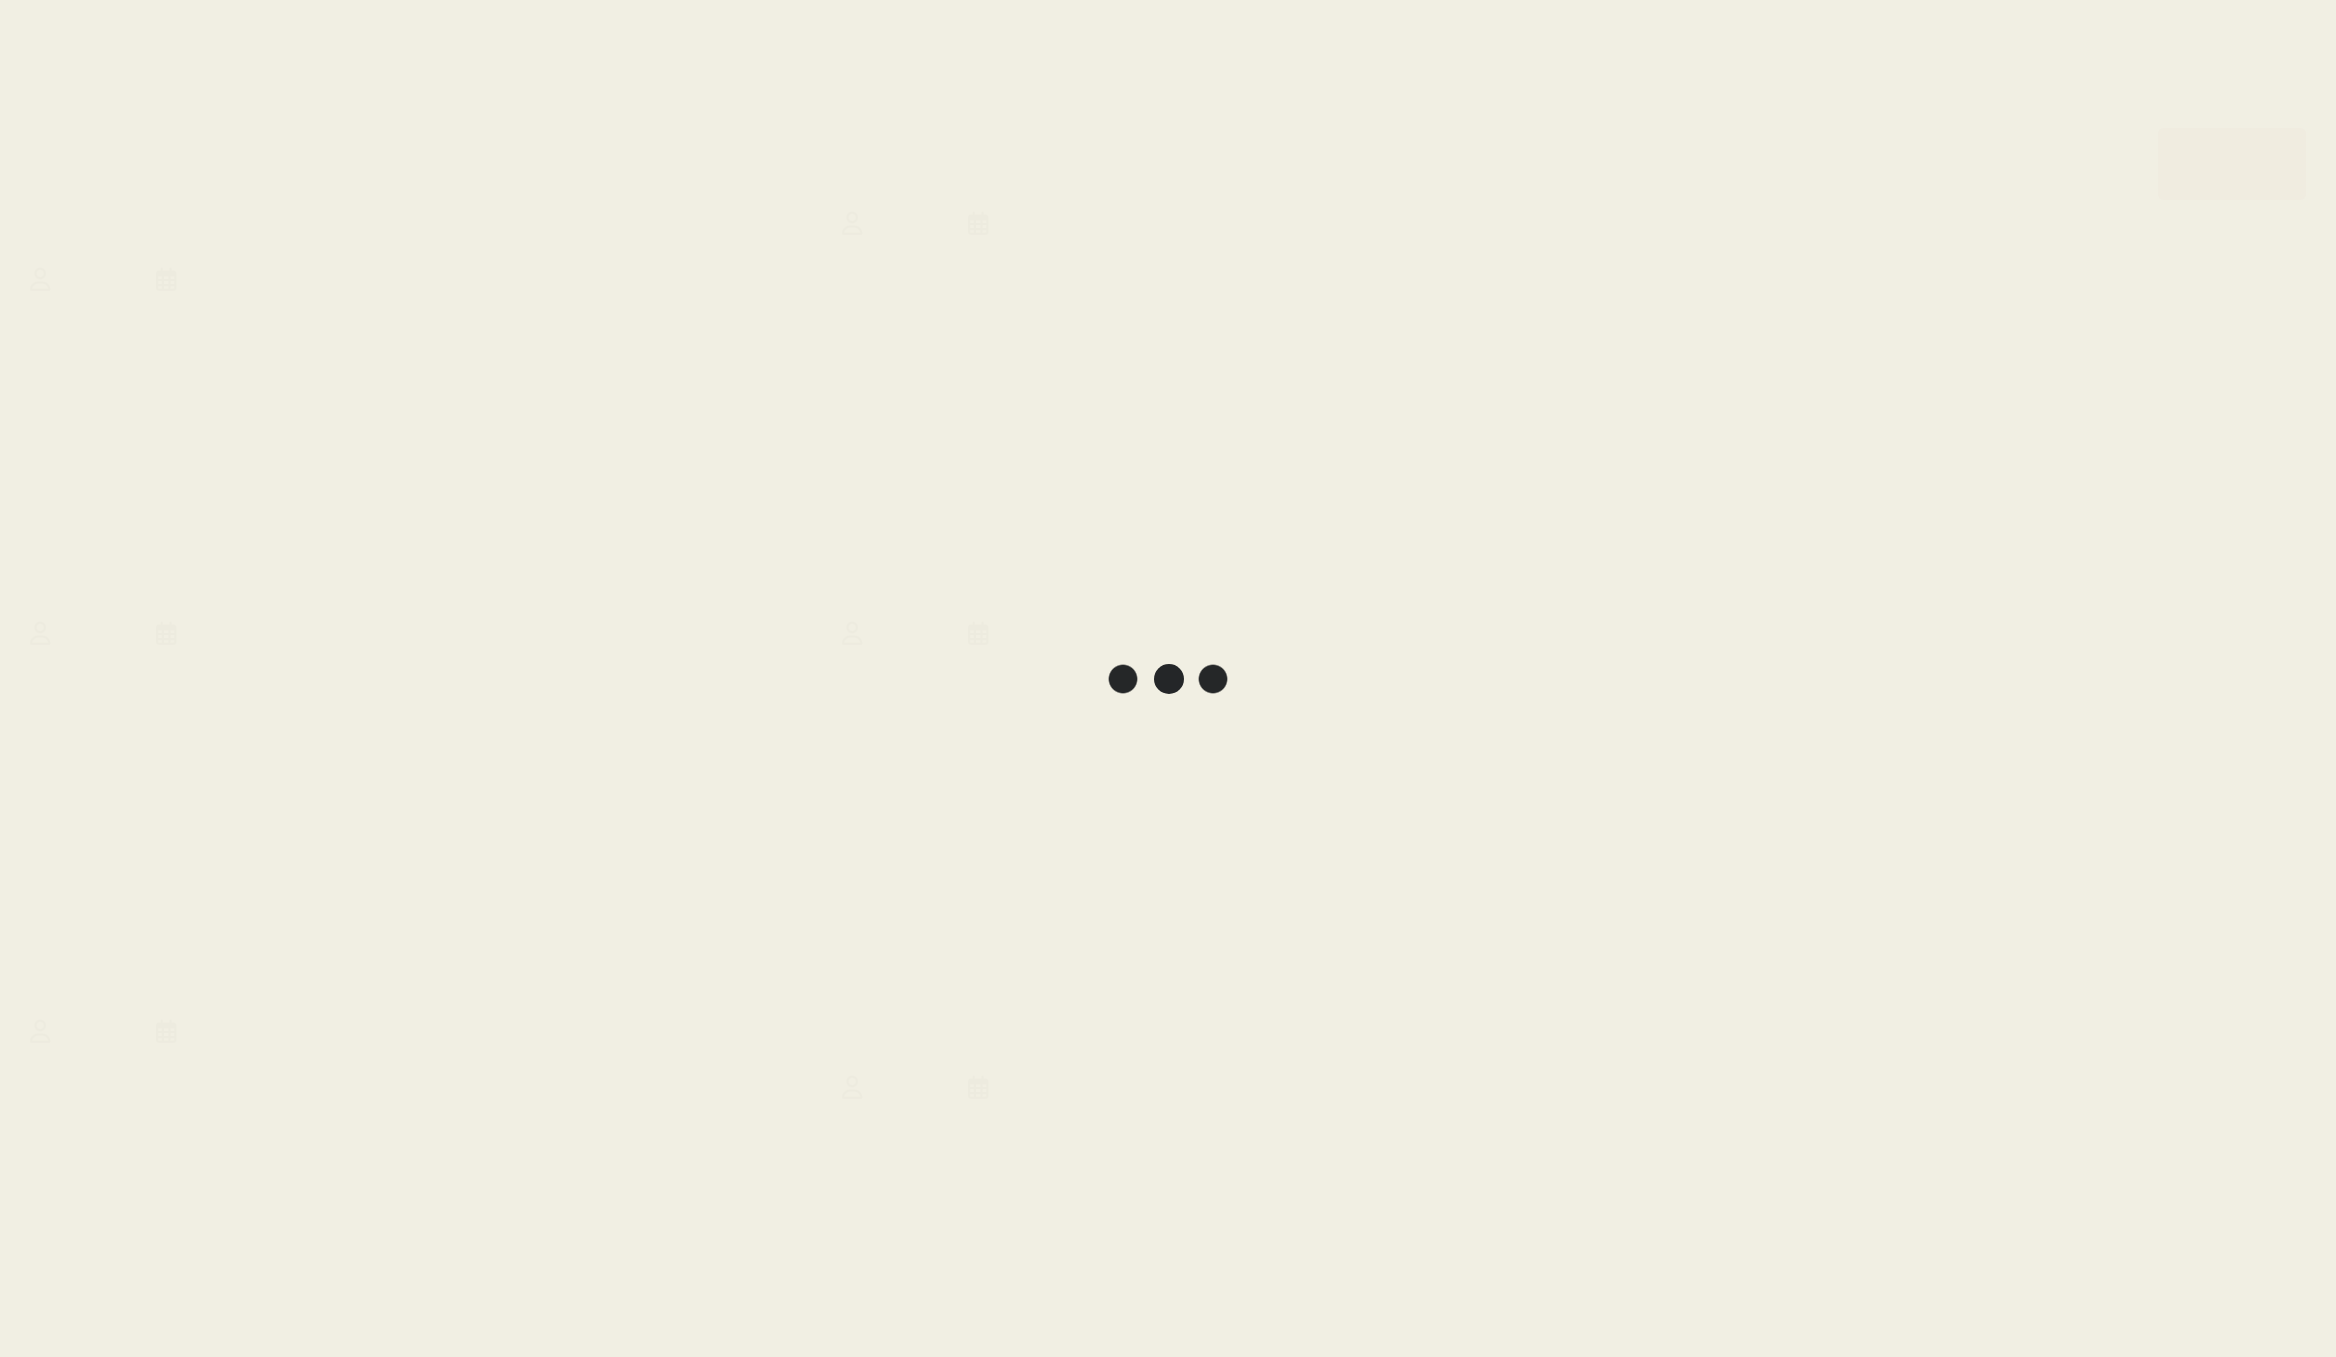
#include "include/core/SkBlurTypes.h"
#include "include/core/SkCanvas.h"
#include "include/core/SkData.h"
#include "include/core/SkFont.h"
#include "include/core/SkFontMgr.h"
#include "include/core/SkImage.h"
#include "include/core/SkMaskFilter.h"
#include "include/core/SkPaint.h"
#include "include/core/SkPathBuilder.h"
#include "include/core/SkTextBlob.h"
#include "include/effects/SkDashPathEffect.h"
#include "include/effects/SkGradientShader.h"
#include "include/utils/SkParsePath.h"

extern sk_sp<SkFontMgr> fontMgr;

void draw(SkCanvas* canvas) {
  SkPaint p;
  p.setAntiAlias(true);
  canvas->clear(SkColorSetRGB(241, 239, 227));
  p.setColor(SkColorSetRGB(240, 236, 224));
  canvas->drawRoundRect(SkRect::MakeLTRB(2158, 128, 2306, 200), 6, 6, p);
  canvas->drawImageRect(SkImages::DeferredFromEncodedData(SkData::MakeFromFileName("images/1.png")), SkRect::MakeLTRB(842, 211, 863, 235), SkSamplingOptions());
  canvas->drawImageRect(SkImages::DeferredFromEncodedData(SkData::MakeFromFileName("images/2.png")), SkRect::MakeLTRB(968, 211, 989, 235), SkSamplingOptions());
  canvas->drawImageRect(SkImages::DeferredFromEncodedData(SkData::MakeFromFileName("images/1.png")), SkRect::MakeLTRB(30, 267, 51, 291), SkSamplingOptions());
  canvas->drawImageRect(SkImages::DeferredFromEncodedData(SkData::MakeFromFileName("images/2.png")), SkRect::MakeLTRB(156, 267, 177, 291), SkSamplingOptions());
  canvas->drawImageRect(SkImages::DeferredFromEncodedData(SkData::MakeFromFileName("images/1.png")), SkRect::MakeLTRB(30, 621, 51, 645), SkSamplingOptions());
  canvas->drawImageRect(SkImages::DeferredFromEncodedData(SkData::MakeFromFileName("images/2.png")), SkRect::MakeLTRB(156, 621, 177, 645), SkSamplingOptions());
  canvas->drawImageRect(SkImages::DeferredFromEncodedData(SkData::MakeFromFileName("images/1.png")), SkRect::MakeLTRB(842, 621, 863, 645), SkSamplingOptions());
  canvas->drawImageRect(SkImages::DeferredFromEncodedData(SkData::MakeFromFileName("images/2.png")), SkRect::MakeLTRB(968, 621, 989, 645), SkSamplingOptions());
  canvas->drawImageRect(SkImages::DeferredFromEncodedData(SkData::MakeFromFileName("images/1.png")), SkRect::MakeLTRB(30, 1019, 51, 1043), SkSamplingOptions());
  canvas->drawImageRect(SkImages::DeferredFromEncodedData(SkData::MakeFromFileName("images/2.png")), SkRect::MakeLTRB(156, 1019, 177, 1043), SkSamplingOptions());
  canvas->drawImageRect(SkImages::DeferredFromEncodedData(SkData::MakeFromFileName("images/1.png")), SkRect::MakeLTRB(842, 1075, 863, 1099), SkSamplingOptions());
  canvas->drawImageRect(SkImages::DeferredFromEncodedData(SkData::MakeFromFileName("images/2.png")), SkRect::MakeLTRB(968, 1075, 989, 1099), SkSamplingOptions());
  {
    const SkColor colors[] = {SkColorSetARGB(242, 25, 27, 29), SkColorSetARGB(0, 25, 27, 29)};
    const float stops[] = {0.9f, 1};
    p.setShader(SkGradientShader::MakeRadial({1213, 679}, 15, colors, stops, 2, SkTileMode::kClamp));
    p.setAlpha(255);
  }
  canvas->drawRect(SkRect::MakeLTRB(1198, 664, 1228, 694), p);
  {
    const SkColor colors[] = {SkColorSetARGB(242, 25, 27, 29), SkColorSetARGB(0, 25, 27, 29)};
    const float stops[] = {0.9f, 1};
    p.setShader(SkGradientShader::MakeRadial({1123, 679}, 15, colors, stops, 2, SkTileMode::kClamp));
    p.setAlpha(255);
  }
  canvas->drawRect(SkRect::MakeLTRB(1108, 664, 1138, 694), p);
  p.setShader(nullptr);
  p.setColor(SkColorSetRGB(36, 38, 40));
  canvas->drawCircle(1169, 679, 15, p);
}
